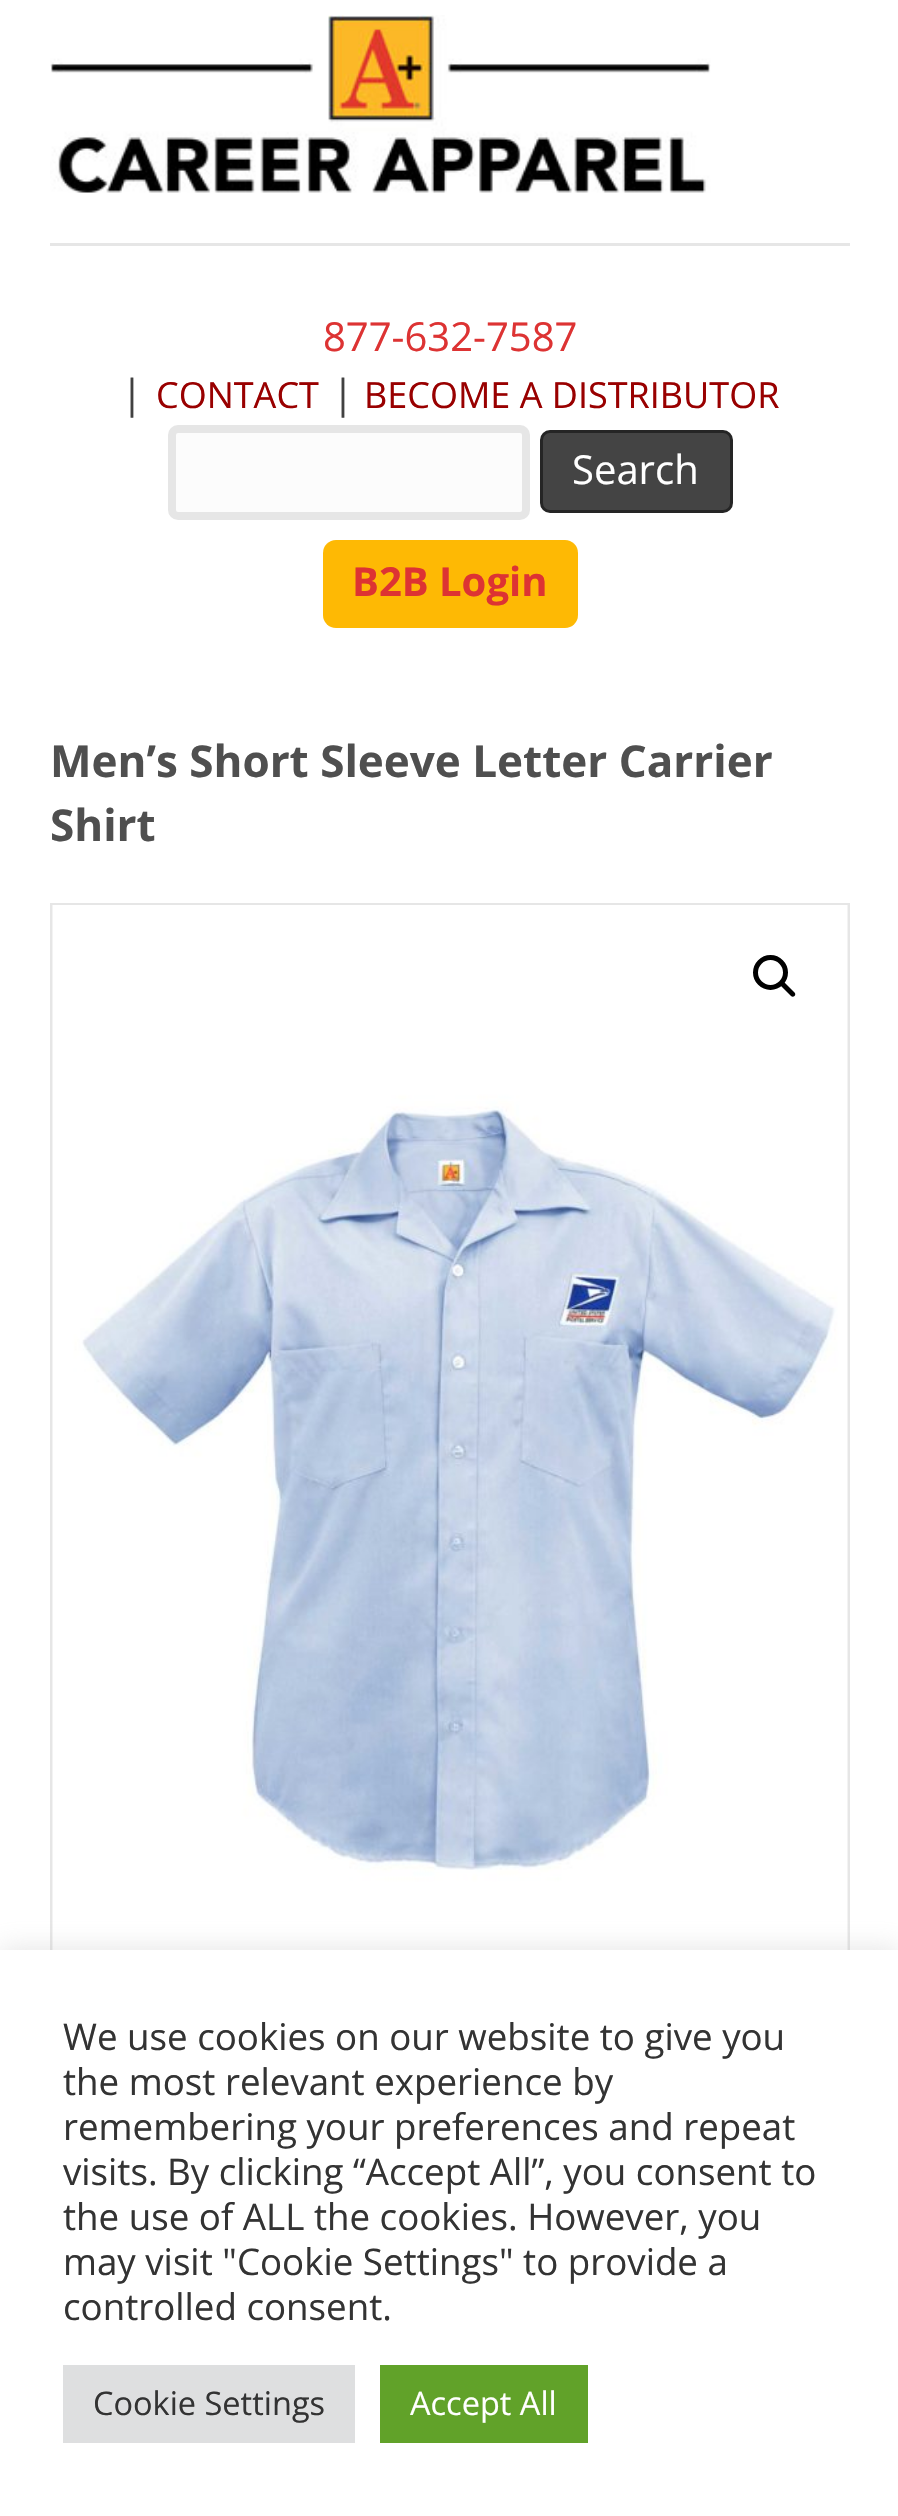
#include "include/core/SkBlurTypes.h"
#include "include/core/SkCanvas.h"
#include "include/core/SkData.h"
#include "include/core/SkFont.h"
#include "include/core/SkFontMgr.h"
#include "include/core/SkImage.h"
#include "include/core/SkMaskFilter.h"
#include "include/core/SkPaint.h"
#include "include/core/SkPathBuilder.h"
#include "include/core/SkTextBlob.h"
#include "include/effects/SkDashPathEffect.h"
#include "include/effects/SkGradientShader.h"
#include "include/utils/SkParsePath.h"

extern sk_sp<SkFontMgr> fontMgr;

void draw(SkCanvas* canvas) {
  SkPaint p;
  p.setAntiAlias(true);
  canvas->clear(SK_ColorWHITE);
  canvas->drawImageRect(SkImages::DeferredFromEncodedData(SkData::MakeFromFileName("images/1.png")), SkRect::MakeLTRB(50, 15, 711, 193), SkSamplingOptions());
  p.setColor(SkColorSetRGB(230, 230, 230));
  canvas->drawRect(SkRect::MakeLTRB(50, 243, 850, 246), p);
  p.setColor(SkColorSetRGB(252, 252, 252));
  canvas->drawRoundRect(SkRect::MakeLTRB(172, 429, 526, 516), 6, 6, p);
  p.setStyle(SkPaint::kStroke_Style);
  p.setStrokeWidth(8);
  p.setColor(SkColorSetRGB(230, 230, 230));
  canvas->drawRoundRect(SkRect::MakeLTRB(172, 429, 526, 516), 6, 6, p);
  p.setStyle(SkPaint::kFill_Style);
  p.setColor(SkColorSetRGB(68, 68, 68));
  canvas->drawRoundRect(SkRect::MakeLTRB(541.5f, 431.5f, 731.5f, 511.5f), 8.5f, 8.5f, p);
  p.setStyle(SkPaint::kStroke_Style);
  p.setStrokeWidth(3);
  p.setColor(SkColorSetRGB(37, 37, 37));
  canvas->drawRoundRect(SkRect::MakeLTRB(541.5f, 431.5f, 731.5f, 511.5f), 8.5f, 8.5f, p);
  p.setStyle(SkPaint::kFill_Style);
  p.setColor(SkColorSetRGB(254, 185, 4));
  canvas->drawRoundRect(SkRect::MakeLTRB(323, 540, 578, 628), 13, 13, p);
  p.setStyle(SkPaint::kStroke_Style);
  p.setColor(SkColorSetRGB(230, 230, 230));
  canvas->drawRect(SkRect::MakeLTRB(51.5f, 904.5f, 848.5f, 2098.5f), p);
  canvas->drawImageRect(SkImages::DeferredFromEncodedData(SkData::MakeFromFileName("images/2.png")), SkRect::MakeLTRB(52, 905, 848, 1950), SkSamplingOptions());
  p.setStrokeWidth(5);
  p.setColor(SK_ColorBLACK);
  canvas->drawCircle(770.5f, 972.5f, 15, p);
  p.setStyle(SkPaint::kFill_Style);
  canvas->drawPath(SkPathBuilder().moveTo(780.5f, 982).cubicTo(781.5f, 981, 783, 981, 784, 982).lineTo(794.5f, 992.5f).cubicTo(795.5f, 993.5f, 795.5f, 995, 794.5f, 996).cubicTo(793.5f, 997, 792, 997, 791, 996).lineTo(780.5f, 985.5f).cubicTo(779.5f, 984.5f, 779.5f, 983, 780.5f, 982).close().detach(), p);
  p.setColor(SkColorSetARGB(77, 172, 171, 171));
  p.setMaskFilter(SkMaskFilter::MakeBlur(kNormal_SkBlurStyle, 12.5f));
  canvas->drawRect(SkRect::MakeLTRB(0, 1948, 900, 2515), p);
  p.setMaskFilter(nullptr);
  p.setColor(SK_ColorWHITE);
  canvas->drawRect(SkRect::MakeLTRB(0, 1950, 898, 2516), p);
  p.setColor(SkColorSetRGB(222, 223, 224));
  canvas->drawRect(SkRect::MakeLTRB(63, 2365, 355, 2443), p);
  p.setColor(SkColorSetRGB(97, 162, 41));
  canvas->drawRect(SkRect::MakeLTRB(380, 2365, 588, 2443), p);
  SkFont font1(fontMgr->matchFamilyStyle("Open Sans", SkFontStyle::Normal()), 40);
  font1.setSubpixel(true);
  p.setColor(SkColorSetRGB(221, 51, 51));
  canvas->drawString("877-632-7587", 323, 351, font1, p);
  p.setColor(SkColorSetRGB(65, 65, 65));
  canvas->drawString("|", 121, 408, font1, p);
  SkFont font2(fontMgr->matchFamilyStyle("Open Sans", SkFontStyle::Normal()), 36);
  font2.setSubpixel(true);
  p.setColor(SkColorSetRGB(153, 0, 0));
  canvas->drawString("CONTACT", 156, 408, font2, p);
  p.setColor(SkColorSetRGB(65, 65, 65));
  canvas->drawString("|", 332, 408, font1, p);
  p.setColor(SkColorSetRGB(153, 0, 0));
  canvas->drawString("BECOME A DISTRIBUTOR", 364, 408, font2, p);
  p.setColor(SK_ColorWHITE);
  canvas->drawString("Search", 572, 484, font1, p);
  SkFont font3(fontMgr->matchFamilyStyle("Open Sans", SkFontStyle::Bold()), 40);
  font3.setSubpixel(true);
  p.setColor(SkColorSetRGB(221, 51, 51));
  canvas->drawString("B2B Login", 352, 596, font3, p);
  SkFont font4(fontMgr->matchFamilyStyle("Open Sans", SkFontStyle::Bold()), 44);
  font4.setSubpixel(true);
  p.setColor(SkColorSetRGB(79, 79, 79));
  canvas->drawString("Men’s Short Sleeve Letter Carrier", 50, 777, font4, p);
  canvas->drawString("Shirt", 50, 841, font4, p);
  SkFont font5(fontMgr->matchFamilyStyle("Open Sans", SkFontStyle::Normal()), 36.7f);
  font5.setSubpixel(true);
  p.setColor(SkColorSetRGB(51, 51, 51));
  canvas->drawString("We use cookies on our website to give you", 63, 2050, font5, p);
  canvas->drawString("the most relevant experience by", 63, 2095, font5, p);
  canvas->drawString("remembering your preferences and repeat", 63, 2140, font5, p);
  canvas->drawString("visits. By clicking “Accept All”, you consent to", 63, 2185, font5, p);
  canvas->drawString("the use of ALL the cookies. However, you", 63, 2230, font5, p);
  canvas->drawString("may visit \"Cookie Settings\" to provide a", 63, 2275, font5, p);
  canvas->drawString("controlled consent.", 63, 2320, font5, p);
  SkFont font6(fontMgr->matchFamilyStyle("Open Sans", SkFontStyle::Normal()), 32.5f);
  font6.setSubpixel(true);
  canvas->drawString("Cookie Settings", 93, 2415, font6, p);
  p.setColor(SK_ColorWHITE);
  canvas->drawString("Accept All", 410, 2415, font6, p);
}
